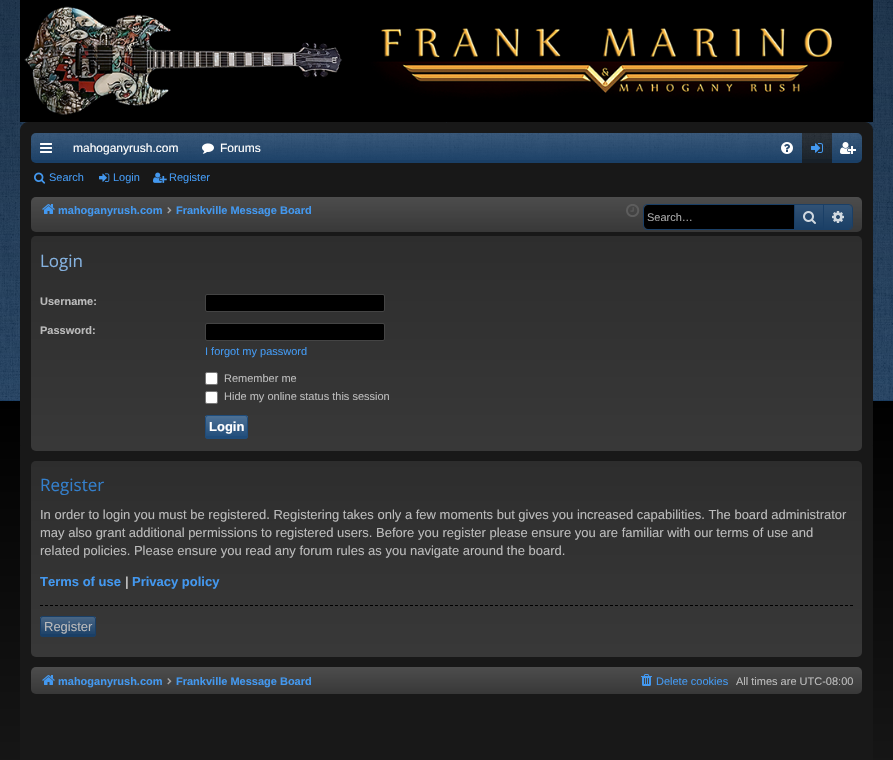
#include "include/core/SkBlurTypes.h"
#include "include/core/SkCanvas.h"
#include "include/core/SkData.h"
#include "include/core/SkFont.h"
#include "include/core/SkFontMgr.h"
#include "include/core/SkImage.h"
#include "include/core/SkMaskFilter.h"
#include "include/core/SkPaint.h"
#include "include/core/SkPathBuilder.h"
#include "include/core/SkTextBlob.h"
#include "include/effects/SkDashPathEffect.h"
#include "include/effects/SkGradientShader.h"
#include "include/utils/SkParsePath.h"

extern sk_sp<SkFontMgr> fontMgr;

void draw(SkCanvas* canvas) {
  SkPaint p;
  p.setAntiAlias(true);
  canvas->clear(SK_ColorWHITE);
  {
    const SkColor colors[] = {SK_ColorBLACK, SK_ColorBLACK, SkColorSetRGB(24, 24, 24)};
    const float stops[] = {0, 0.5f, 1};
    const SkPoint ends[] = {{446, 0}, {447, 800}};
    p.setShader(SkGradientShader::MakeLinear(ends, colors, stops, 3, SkTileMode::kClamp));
    p.setAlpha(255);
  }
  canvas->drawRect(SkRect::MakeLTRB(0, 401, 893, 760), p);
  p.setShader(nullptr);
  p.setColor(SkColorSetRGB(26, 58, 92));
  canvas->drawRect(SkRect::MakeLTRB(0, 0, 893, 401), p);
  canvas->drawImageRect(SkImages::DeferredFromEncodedData(SkData::MakeFromFileName("images/1.png")), SkRect::MakeLTRB(0, 0, 893, 401), SkSamplingOptions());
  p.setColor(SkColorSetARGB(51, 16, 101, 188));
  canvas->drawRect(SkRect::MakeLTRB(0, 400, 893, 401), p);
  p.setColor(SK_ColorBLACK);
  canvas->drawRect(SkRect::MakeLTRB(20, 0, 873, 122), p);
  canvas->drawImageRect(SkImages::DeferredFromEncodedData(SkData::MakeFromFileName("images/2.png")), SkRect::MakeLTRB(24, 6, 844, 115), SkSamplingOptions());
  p.setColor(SkColorSetRGB(24, 24, 24));
  canvas->drawRoundRect(SkRect::MakeLTRB(20.5f, 122.5f, 872.5f, 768.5f), 7.5f, 7.5f, p);
  p.setStyle(SkPaint::kStroke_Style);
  p.setStrokeWidth(1);
  canvas->drawRoundRect(SkRect::MakeLTRB(20.5f, 122.5f, 872.5f, 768.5f), 7.5f, 7.5f, p);
  p.setStyle(SkPaint::kFill_Style);
  p.setColor(SkColorSetRGB(26, 63, 102));
  canvas->drawRoundRect(SkRect::MakeLTRB(31, 133, 862, 163), 5, 5, p);
  canvas->drawImageRect(SkImages::DeferredFromEncodedData(SkData::MakeFromFileName("images/3.png")), SkRect::MakeLTRB(31, 133, 862, 160), SkSamplingOptions());
  canvas->drawImageRect(SkImages::DeferredFromEncodedData(SkData::MakeFromFileName("images/4.png")), SkRect::MakeLTRB(40, 143, 52, 153), SkSamplingOptions());
  canvas->drawImageRect(SkImages::DeferredFromEncodedData(SkData::MakeFromFileName("images/5.png")), SkRect::MakeLTRB(202, 143, 214, 154), SkSamplingOptions());
  canvas->drawImageRect(SkImages::DeferredFromEncodedData(SkData::MakeFromFileName("images/6.png")), SkRect::MakeLTRB(781, 142, 793, 154), SkSamplingOptions());
  p.setColor(SkColorSetRGB(24, 32, 40));
  canvas->drawRect(SkRect::MakeLTRB(802, 133, 832, 163), p);
  canvas->drawImageRect(SkImages::DeferredFromEncodedData(SkData::MakeFromFileName("images/7.png")), SkRect::MakeLTRB(802, 133, 832, 159), SkSamplingOptions());
  canvas->drawImageRect(SkImages::DeferredFromEncodedData(SkData::MakeFromFileName("images/8.png")), SkRect::MakeLTRB(811, 143, 823, 153), SkSamplingOptions());
  canvas->drawImageRect(SkImages::DeferredFromEncodedData(SkData::MakeFromFileName("images/9.png")), SkRect::MakeLTRB(840, 142, 856, 154), SkSamplingOptions());
  canvas->drawImageRect(SkImages::DeferredFromEncodedData(SkData::MakeFromFileName("images/10.png")), SkRect::MakeLTRB(34, 172, 46, 184), SkSamplingOptions());
  canvas->drawImageRect(SkImages::DeferredFromEncodedData(SkData::MakeFromFileName("images/11.png")), SkRect::MakeLTRB(99, 173, 110, 182), SkSamplingOptions());
  canvas->drawImageRect(SkImages::DeferredFromEncodedData(SkData::MakeFromFileName("images/12.png")), SkRect::MakeLTRB(153, 172, 167, 183), SkSamplingOptions());
  p.setColor(SkColorSetRGB(56, 56, 56));
  canvas->drawRoundRect(SkRect::MakeLTRB(31, 197, 862, 232), 5, 5, p);
  {
    const SkColor colors[] = {SkColorSetARGB(26, 255, 255, 255), SkColorSetARGB(0, 255, 255, 255)};
    const float stops[] = {0, 1};
    const SkPoint ends[] = {{447, 197}, {447, 232}};
    p.setShader(SkGradientShader::MakeLinear(ends, colors, stops, 2, SkTileMode::kClamp));
    p.setAlpha(255);
  }
  canvas->drawRoundRect(SkRect::MakeLTRB(31, 197, 862, 232), 5, 5, p);
  canvas->drawImageRect(SkImages::DeferredFromEncodedData(SkData::MakeFromFileName("images/13.png")), SkRect::MakeLTRB(42, 204, 55, 214), SkSamplingOptions());
  canvas->drawImageRect(SkImages::DeferredFromEncodedData(SkData::MakeFromFileName("images/14.png")), SkRect::MakeLTRB(167, 207, 172, 214), SkSamplingOptions());
  canvas->drawImageRect(SkImages::DeferredFromEncodedData(SkData::MakeFromFileName("images/15.png")), SkRect::MakeLTRB(626, 204, 640, 217), SkSamplingOptions());
  p.setStyle(SkPaint::kStroke_Style);
  p.setShader(nullptr);
  p.setColor(SkColorSetRGB(26, 63, 102));
  canvas->drawRoundRect(SkRect::MakeLTRB(643.5f, 204.5f, 852.5f, 229.5f), 3.5f, 3.5f, p);
  p.setStyle(SkPaint::kFill_Style);
  p.setColor(SK_ColorBLACK);
  canvas->drawPath(SkPathBuilder().moveTo(648, 205).lineTo(794, 205).lineTo(794, 229).lineTo(648, 229).cubicTo(646, 229, 644, 227, 644, 225).lineTo(644, 209).cubicTo(644, 207, 646, 205, 648, 205).close().detach(), p);
  {
    const SkColor colors[] = {SkColorSetRGB(49, 82, 117), SkColorSetRGB(26, 63, 102)};
    const float stops[] = {0, 1};
    const SkPoint ends[] = {{809, 205}, {809, 229}};
    p.setShader(SkGradientShader::MakeLinear(ends, colors, stops, 2, SkTileMode::kClamp));
    p.setAlpha(255);
  }
  canvas->drawRect(SkRect::MakeLTRB(795, 205, 823, 229), p);
  p.setShader(nullptr);
  p.setColor(SkColorSetRGB(26, 63, 102));
  canvas->drawRect(SkRect::MakeLTRB(823, 205, 824, 229), p);
  canvas->drawRect(SkRect::MakeLTRB(794, 205, 795, 229), p);
  canvas->drawImageRect(SkImages::DeferredFromEncodedData(SkData::MakeFromFileName("images/16.png")), SkRect::MakeLTRB(803, 211, 816, 224), SkSamplingOptions());
  canvas->drawPath(SkPathBuilder().moveTo(824, 205).lineTo(848, 205).cubicTo(850, 205, 852, 207, 852, 209).lineTo(852, 225).cubicTo(852, 227, 850, 229, 848, 229).lineTo(824, 229).close().detach(), p);
  {
    const SkColor colors[] = {SkColorSetARGB(26, 255, 255, 255), SkColorSetARGB(0, 255, 255, 255)};
    const float stops[] = {0, 1};
    const SkPoint ends[] = {{838, 205}, {838, 229}};
    p.setShader(SkGradientShader::MakeLinear(ends, colors, stops, 2, SkTileMode::kClamp));
    p.setAlpha(255);
  }
  canvas->drawPath(SkPathBuilder().moveTo(824, 205).lineTo(848, 205).cubicTo(850, 205, 852, 207, 852, 209).lineTo(852, 225).cubicTo(852, 227, 850, 229, 848, 229).lineTo(824, 229).close().detach(), p);
  canvas->drawImageRect(SkImages::DeferredFromEncodedData(SkData::MakeFromFileName("images/17.png")), SkRect::MakeLTRB(832, 211, 844, 223), SkSamplingOptions());
  p.setShader(nullptr);
  p.setColor(SkColorSetRGB(56, 56, 56));
  canvas->drawRoundRect(SkRect::MakeLTRB(31, 236, 862, 451), 5, 5, p);
  {
    const SkColor colors[] = {SkColorSetARGB(51, 0, 0, 0), SkColorSetARGB(0, 0, 0, 0)};
    const float stops[] = {0, 1};
    const SkPoint ends[] = {{447, 236}, {447, 451}};
    p.setShader(SkGradientShader::MakeLinear(ends, colors, stops, 2, SkTileMode::kClamp));
    p.setAlpha(255);
  }
  canvas->drawRoundRect(SkRect::MakeLTRB(31, 236, 862, 451), 5, 5, p);
  p.setShader(nullptr);
  p.setColor(SK_ColorBLACK);
  canvas->drawRoundRect(SkRect::MakeLTRB(205.5f, 294.5f, 384.5f, 311.5f), 1.5f, 1.5f, p);
  p.setStyle(SkPaint::kStroke_Style);
  p.setColor(SkColorSetRGB(68, 68, 68));
  canvas->drawRoundRect(SkRect::MakeLTRB(205.5f, 294.5f, 384.5f, 311.5f), 1.5f, 1.5f, p);
  p.setStyle(SkPaint::kFill_Style);
  p.setColor(SK_ColorBLACK);
  canvas->drawRoundRect(SkRect::MakeLTRB(205.5f, 323.5f, 384.5f, 340.5f), 1.5f, 1.5f, p);
  p.setStyle(SkPaint::kStroke_Style);
  p.setColor(SkColorSetRGB(68, 68, 68));
  canvas->drawRoundRect(SkRect::MakeLTRB(205.5f, 323.5f, 384.5f, 340.5f), 1.5f, 1.5f, p);
  p.setStyle(SkPaint::kFill_Style);
  p.setColor(SK_ColorWHITE);
  canvas->drawRoundRect(SkRect::MakeLTRB(205.5f, 372.5f, 217.5f, 384.5f), 1.5f, 1.5f, p);
  p.setStyle(SkPaint::kStroke_Style);
  p.setColor(SkColorSetRGB(118, 118, 118));
  canvas->drawRoundRect(SkRect::MakeLTRB(205.5f, 372.5f, 217.5f, 384.5f), 1.5f, 1.5f, p);
  p.setStyle(SkPaint::kFill_Style);
  p.setColor(SK_ColorWHITE);
  canvas->drawRoundRect(SkRect::MakeLTRB(205.5f, 391.5f, 217.5f, 403.5f), 1.5f, 1.5f, p);
  p.setStyle(SkPaint::kStroke_Style);
  p.setColor(SkColorSetRGB(118, 118, 118));
  canvas->drawRoundRect(SkRect::MakeLTRB(205.5f, 391.5f, 217.5f, 403.5f), 1.5f, 1.5f, p);
  p.setStyle(SkPaint::kFill_Style);
  p.setColor(SkColorSetRGB(31, 76, 122));
  canvas->drawRoundRect(SkRect::MakeLTRB(205, 415, 248, 439), 3, 3, p);
  {
    const SkColor colors[] = {SkColorSetARGB(51, 255, 255, 255), SkColorSetARGB(0, 255, 255, 255)};
    const float stops[] = {0, 1};
    const SkPoint ends[] = {{227, 416}, {227, 438}};
    p.setShader(SkGradientShader::MakeLinear(ends, colors, stops, 2, SkTileMode::kClamp));
    p.setAlpha(255);
  }
  canvas->drawRect(SkRect::MakeLTRB(205, 416, 248, 436), p);
  p.setStyle(SkPaint::kStroke_Style);
  p.setShader(nullptr);
  p.setColor(SkColorSetRGB(31, 76, 122));
  canvas->drawRoundRect(SkRect::MakeLTRB(205.5f, 415.5f, 247.5f, 438.5f), 2.5f, 2.5f, p);
  p.setStyle(SkPaint::kFill_Style);
  p.setColor(SkColorSetRGB(56, 56, 56));
  canvas->drawRoundRect(SkRect::MakeLTRB(31, 461, 862, 657), 5, 5, p);
  {
    const SkColor colors[] = {SkColorSetARGB(51, 0, 0, 0), SkColorSetARGB(0, 0, 0, 0)};
    const float stops[] = {0, 1};
    const SkPoint ends[] = {{447, 461}, {447, 657}};
    p.setShader(SkGradientShader::MakeLinear(ends, colors, stops, 2, SkTileMode::kClamp));
    p.setAlpha(255);
  }
  canvas->drawRoundRect(SkRect::MakeLTRB(31, 461, 862, 657), 5, 5, p);
  p.setStyle(SkPaint::kStroke_Style);
  p.setShader(nullptr);
  p.setColor(SK_ColorBLACK);
  p.setPathEffect(SkDashPathEffect::Make({{3, 2}}, 0));
  canvas->drawPath(SkPathBuilder().moveTo(40, 605.5f).lineTo(853, 605.5f).detach(), p);
  p.setPathEffect(nullptr);
  p.setStyle(SkPaint::kFill_Style);
  p.setColor(SkColorSetRGB(26, 63, 102));
  canvas->drawRoundRect(SkRect::MakeLTRB(40, 616, 96, 637), 3, 3, p);
  {
    const SkColor colors[] = {SkColorSetARGB(51, 255, 255, 255), SkColorSetARGB(0, 255, 255, 255)};
    const float stops[] = {0, 1};
    const SkPoint ends[] = {{68, 617}, {68, 636}};
    p.setShader(SkGradientShader::MakeLinear(ends, colors, stops, 2, SkTileMode::kClamp));
    p.setAlpha(255);
  }
  canvas->drawRect(SkRect::MakeLTRB(40, 617, 96, 634), p);
  p.setStyle(SkPaint::kStroke_Style);
  p.setShader(nullptr);
  p.setColor(SkColorSetRGB(26, 63, 102));
  canvas->drawRoundRect(SkRect::MakeLTRB(40.5f, 616.5f, 95.5f, 636.5f), 2.5f, 2.5f, p);
  p.setStyle(SkPaint::kFill_Style);
  p.setColor(SkColorSetRGB(56, 56, 56));
  canvas->drawRoundRect(SkRect::MakeLTRB(31, 667, 862, 694), 5, 5, p);
  {
    const SkColor colors[] = {SkColorSetARGB(26, 255, 255, 255), SkColorSetARGB(0, 255, 255, 255)};
    const float stops[] = {0, 1};
    const SkPoint ends[] = {{447, 667}, {447, 694}};
    p.setShader(SkGradientShader::MakeLinear(ends, colors, stops, 2, SkTileMode::kClamp));
    p.setAlpha(255);
  }
  canvas->drawRoundRect(SkRect::MakeLTRB(31, 667, 862, 694), 5, 5, p);
  canvas->drawImageRect(SkImages::DeferredFromEncodedData(SkData::MakeFromFileName("images/18.png")), SkRect::MakeLTRB(42, 675, 55, 685), SkSamplingOptions());
  canvas->drawImageRect(SkImages::DeferredFromEncodedData(SkData::MakeFromFileName("images/19.png")), SkRect::MakeLTRB(167, 678, 172, 685), SkSamplingOptions());
  canvas->drawImageRect(SkImages::DeferredFromEncodedData(SkData::MakeFromFileName("images/20.png")), SkRect::MakeLTRB(641, 674, 652, 686), SkSamplingOptions());
  SkFont font1(fontMgr->matchFamilyStyle("Liberation Sans", SkFontStyle::Normal()), 12);
  font1.setSubpixel(true);
  p.setShader(nullptr);
  p.setColor(SK_ColorWHITE);
  canvas->drawString("mahoganyrush.com", 73, 152, font1, p);
  canvas->drawString("Forums", 220, 152, font1, p);
  SkFont font2(fontMgr->matchFamilyStyle("Liberation Sans", SkFontStyle::Normal()), 11);
  font2.setSubpixel(true);
  p.setColor(SkColorSetRGB(67, 152, 239));
  canvas->drawString("Search", 49, 181, font2, p);
  canvas->drawString("Login", 113, 181, font2, p);
  canvas->drawString("Register", 169, 181, font2, p);
  SkFont font3(fontMgr->matchFamilyStyle("Liberation Sans", SkFontStyle::Bold()), 11);
  font3.setSubpixel(true);
  canvas->drawString("mahoganyrush.com", 58, 214, font3, p);
  canvas->drawString("Frankville Message Board", 176, 214, font3, p);
  p.setColor(SkColorSetRGB(168, 168, 168));
  canvas->drawString("Search…", 647, 221, font2, p);
  SkFont font4(fontMgr->matchFamilyStyle("Open Sans", SkFontStyle::Normal()), 17);
  font4.setSubpixel(true);
  p.setColor(SkColorSetRGB(133, 178, 224));
  canvas->drawString("Login", 40, 267, font4, p);
  p.setColor(SkColorSetRGB(187, 187, 187));
  canvas->drawString("Username:", 40, 305, font3, p);
  canvas->drawString("Password:", 40, 334, font3, p);
  p.setColor(SkColorSetRGB(67, 152, 239));
  canvas->drawString("I forgot my password", 205, 355, font2, p);
  p.setColor(SkColorSetRGB(187, 187, 187));
  canvas->drawString("Remember me", 224, 382, font2, p);
  canvas->drawString("Hide my online status this session", 224, 400, font2, p);
  SkFont font5(fontMgr->matchFamilyStyle("Liberation Sans", SkFontStyle::Bold()), 13);
  font5.setSubpixel(true);
  p.setColor(SK_ColorWHITE);
  canvas->drawString("Login", 209, 431, font5, p);
  p.setColor(SkColorSetRGB(52, 127, 203));
  canvas->drawString("Register", 40, 491, font4, p);
  SkFont font6(fontMgr->matchFamilyStyle("Liberation Sans", SkFontStyle::Normal()), 13);
  font6.setSubpixel(true);
  p.setColor(SkColorSetRGB(187, 187, 187));
  canvas->drawString("In order to login you must be registered. Registering takes only a few moments but gives you increased capabilities. The board administrator", 40, 519, font6, p);
  canvas->drawString("may also grant additional permissions to registered users. Before you register please ensure you are familiar with our terms of use and", 40, 537, font6, p);
  canvas->drawString("related policies. Please ensure you read any forum rules as you navigate around the board.", 40, 555, font6, p);
  p.setColor(SkColorSetRGB(67, 152, 239));
  canvas->drawString("Terms of use", 40, 586, font5, p);
  p.setColor(SkColorSetRGB(187, 187, 187));
  canvas->drawString("|", 125, 586, font5, p);
  p.setColor(SkColorSetRGB(67, 152, 239));
  canvas->drawString("Privacy policy", 132, 586, font5, p);
  p.setColor(SkColorSetRGB(187, 187, 187));
  canvas->drawString("Register", 44, 631, font6, p);
  p.setColor(SkColorSetRGB(67, 152, 239));
  canvas->drawString("mahoganyrush.com", 58, 685, font3, p);
  canvas->drawString("Frankville Message Board", 176, 685, font3, p);
  canvas->drawString("Delete cookies", 656, 685, font2, p);
  p.setColor(SkColorSetRGB(187, 187, 187));
  canvas->drawString("All times are UTC-08:00", 736, 685, font2, p);
}
